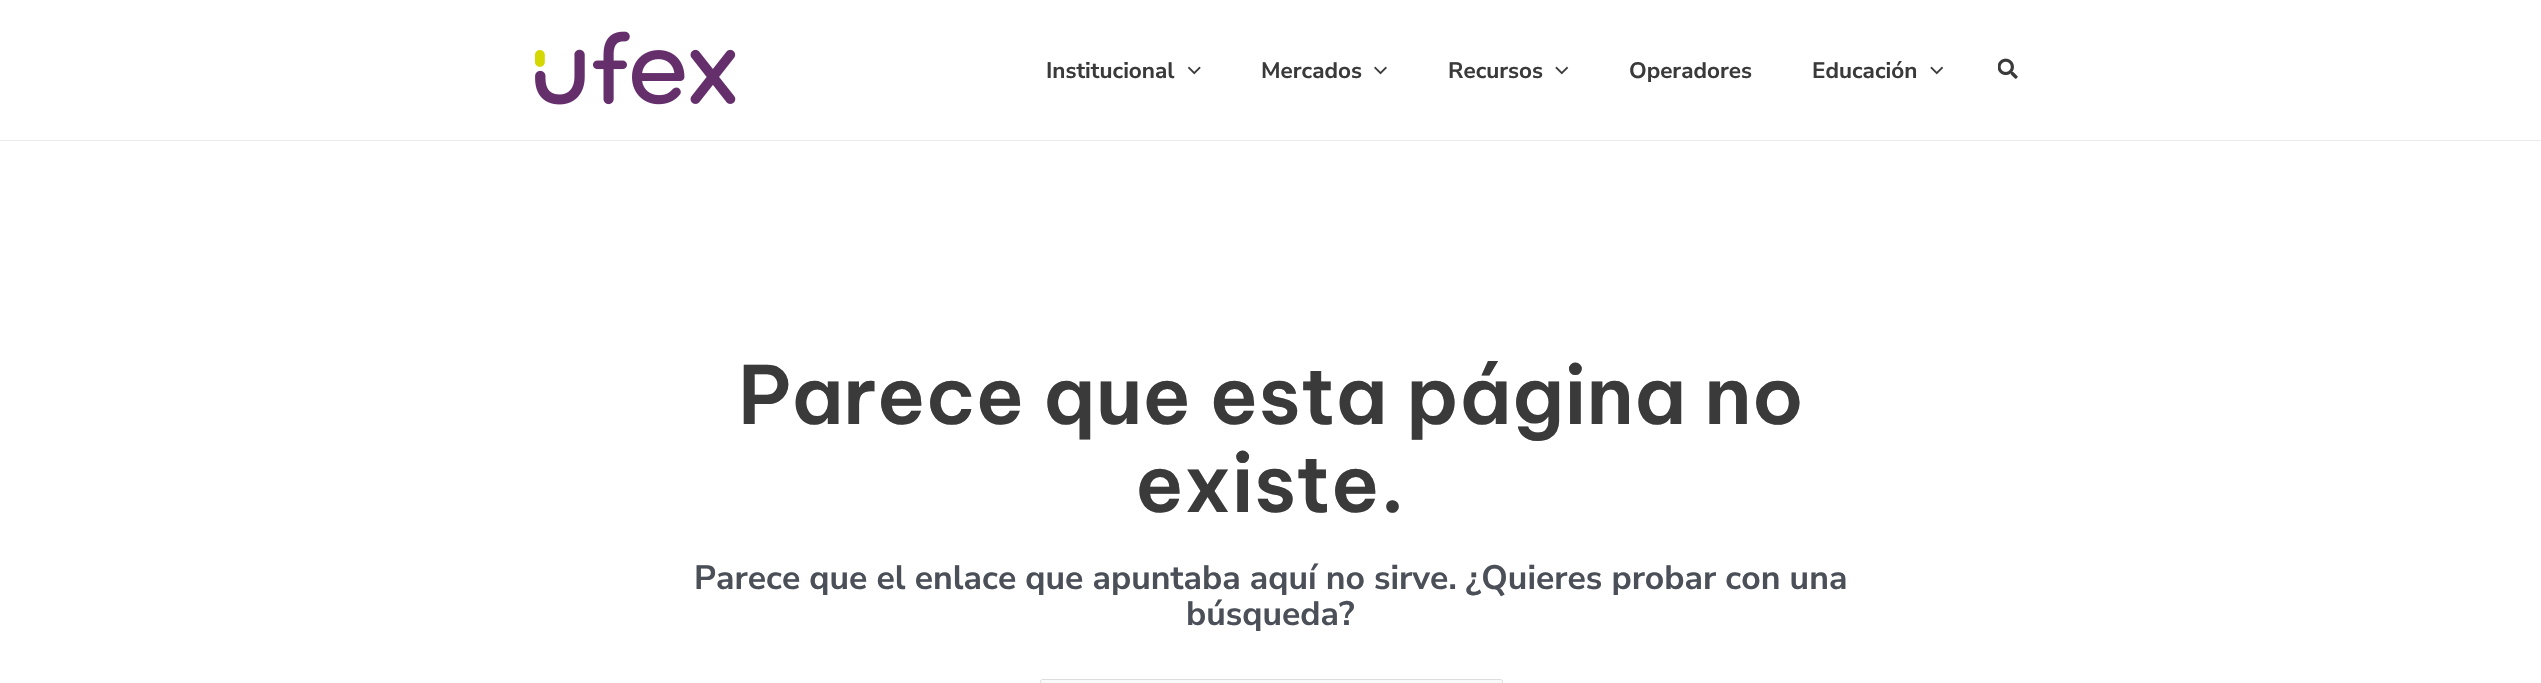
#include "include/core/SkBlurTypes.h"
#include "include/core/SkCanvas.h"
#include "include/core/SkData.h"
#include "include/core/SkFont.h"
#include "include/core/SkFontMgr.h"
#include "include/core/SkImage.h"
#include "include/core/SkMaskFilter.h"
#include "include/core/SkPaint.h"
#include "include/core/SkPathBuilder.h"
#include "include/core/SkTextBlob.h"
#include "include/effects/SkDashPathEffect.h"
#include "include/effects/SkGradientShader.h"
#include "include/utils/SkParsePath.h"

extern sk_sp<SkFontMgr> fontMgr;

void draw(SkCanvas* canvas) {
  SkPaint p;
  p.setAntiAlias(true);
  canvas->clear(SK_ColorWHITE);
  p.setColor(SkColorSetRGB(234, 234, 234));
  canvas->drawRect(SkRect::MakeLTRB(0, 140, 2541, 141), p);
  canvas->drawImageRect(SkImages::DeferredFromEncodedData(SkData::MakeFromFileName("images/1.png")), SkRect::MakeLTRB(535, 31, 736, 105), SkSamplingOptions());
  canvas->drawImageRect(SkImages::DeferredFromEncodedData(SkData::MakeFromFileName("images/2.png")), SkRect::MakeLTRB(1188, 66, 1201, 75), SkSamplingOptions());
  canvas->drawImageRect(SkImages::DeferredFromEncodedData(SkData::MakeFromFileName("images/3.png")), SkRect::MakeLTRB(1374, 66, 1387, 75), SkSamplingOptions());
  canvas->drawImageRect(SkImages::DeferredFromEncodedData(SkData::MakeFromFileName("images/4.png")), SkRect::MakeLTRB(1555, 66, 1569, 75), SkSamplingOptions());
  canvas->drawImageRect(SkImages::DeferredFromEncodedData(SkData::MakeFromFileName("images/5.png")), SkRect::MakeLTRB(1930, 66, 1943, 75), SkSamplingOptions());
  canvas->drawImageRect(SkImages::DeferredFromEncodedData(SkData::MakeFromFileName("images/6.png")), SkRect::MakeLTRB(1998, 58, 2018, 79), SkSamplingOptions());
  p.setColor(SkColorSetRGB(250, 250, 250));
  canvas->drawRoundRect(SkRect::MakeLTRB(1040.5f, 679.5f, 1502.5f, 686.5f), 2, 2, p);
  p.setStyle(SkPaint::kStroke_Style);
  p.setStrokeWidth(1);
  p.setColor(SkColorSetRGB(221, 221, 221));
  canvas->drawRoundRect(SkRect::MakeLTRB(1040.5f, 679.5f, 1502.5f, 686.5f), 2, 2, p);
  SkFont font1(fontMgr->matchFamilyStyle("Nunito Sans", SkFontStyle::Bold()), 22.5f);
  font1.setSubpixel(true);
  p.setStyle(SkPaint::kFill_Style);
  p.setColor(SkColorSetRGB(58, 58, 58));
  canvas->drawString("Institucional", 1046, 78, font1, p);
  canvas->drawString("Mercados", 1261, 78, font1, p);
  canvas->drawString("Recursos", 1448, 78, font1, p);
  canvas->drawString("Operadores", 1629, 78, font1, p);
  canvas->drawString("Educación", 1812, 78, font1, p);
  SkFont font2(fontMgr->matchFamilyStyle("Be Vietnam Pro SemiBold", SkFontStyle(600, SkFontStyle::kNormal_Width, SkFontStyle::kUpright_Slant)), 80);
  font2.setSubpixel(true);
  canvas->drawString("Parece que esta página no", 738, 424, font2, p);
  canvas->drawString("existe.", 1135, 512, font2, p);
  SkFont font3(fontMgr->matchFamilyStyle("Nunito Sans", SkFontStyle::Bold()), 33.75f);
  font3.setSubpixel(true);
  p.setColor(SkColorSetRGB(75, 79, 88));
  canvas->drawString("Parece que el enlace que apuntaba aquí no sirve. ¿Quieres probar con una", 694, 589, font3, p);
  canvas->drawString("búsqueda?", 1186, 625, font3, p);
}
